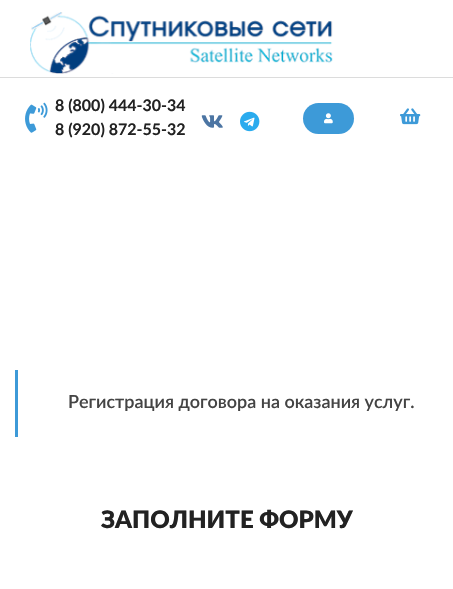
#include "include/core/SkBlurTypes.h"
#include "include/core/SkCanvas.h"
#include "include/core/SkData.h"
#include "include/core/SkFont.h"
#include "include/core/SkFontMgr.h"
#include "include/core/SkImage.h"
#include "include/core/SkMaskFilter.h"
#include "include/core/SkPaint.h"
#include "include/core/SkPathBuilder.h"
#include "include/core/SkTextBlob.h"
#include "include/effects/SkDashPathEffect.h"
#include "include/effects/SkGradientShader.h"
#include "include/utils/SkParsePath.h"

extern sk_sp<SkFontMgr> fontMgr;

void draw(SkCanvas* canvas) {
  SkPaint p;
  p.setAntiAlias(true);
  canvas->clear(SK_ColorWHITE);
  p.setColor(SkColorSetRGB(220, 220, 220));
  canvas->drawRect(SkRect::MakeLTRB(0, 77, 453, 78), p);
  canvas->drawImageRect(SkImages::DeferredFromEncodedData(SkData::MakeFromFileName("images/1.png")), SkRect::MakeLTRB(30, 12, 333, 74), SkSamplingOptions());
  canvas->drawImageRect(SkImages::DeferredFromEncodedData(SkData::MakeFromFileName("images/2.png")), SkRect::MakeLTRB(25, 102, 48, 133), SkSamplingOptions());
  canvas->drawImageRect(SkImages::DeferredFromEncodedData(SkData::MakeFromFileName("images/3.png")), SkRect::MakeLTRB(201, 115, 223, 128), SkSamplingOptions());
  canvas->drawImageRect(SkImages::DeferredFromEncodedData(SkData::MakeFromFileName("images/4.png")), SkRect::MakeLTRB(240, 111, 260, 132), SkSamplingOptions());
  p.setColor(SkColorSetRGB(61, 154, 216));
  canvas->drawRoundRect(SkRect::MakeLTRB(303, 103, 354, 134), 15.5f, 15.5f, p);
  canvas->drawImageRect(SkImages::DeferredFromEncodedData(SkData::MakeFromFileName("images/5.png")), SkRect::MakeLTRB(324, 113, 333, 124), SkSamplingOptions());
  canvas->drawImageRect(SkImages::DeferredFromEncodedData(SkData::MakeFromFileName("images/6.png")), SkRect::MakeLTRB(400, 108, 421, 125), SkSamplingOptions());
  canvas->drawRect(SkRect::MakeLTRB(15, 370, 18, 437), p);
  SkFont font1(fontMgr->matchFamilyStyle("Lato", SkFontStyle::Bold()), 16);
  font1.setSubpixel(true);
  p.setColor(SkColorSetRGB(34, 34, 34));
  canvas->drawString("8 (800) 444-30-34", 55, 111, font1, p);
  canvas->drawString("8 (920) 872-55-32", 55, 135, font1, p);
  SkFont font2(fontMgr->matchFamilyStyle("Lato", SkFontStyle(600, SkFontStyle::kNormal_Width, SkFontStyle::kUpright_Slant)), 18);
  font2.setSubpixel(true);
  p.setColor(SkColorSetRGB(68, 68, 68));
  canvas->drawString("Регистрация договора на оказания услуг.", 68, 408, font2, p);
  SkFont font3(fontMgr->matchFamilyStyle("Lato", SkFontStyle(900, SkFontStyle::kNormal_Width, SkFontStyle::kUpright_Slant)), 24);
  font3.setSubpixel(true);
  p.setColor(SkColorSetRGB(34, 34, 34));
  canvas->drawString("ЗАПОЛНИТЕ ФОРМУ", 101, 528, font3, p);
}
